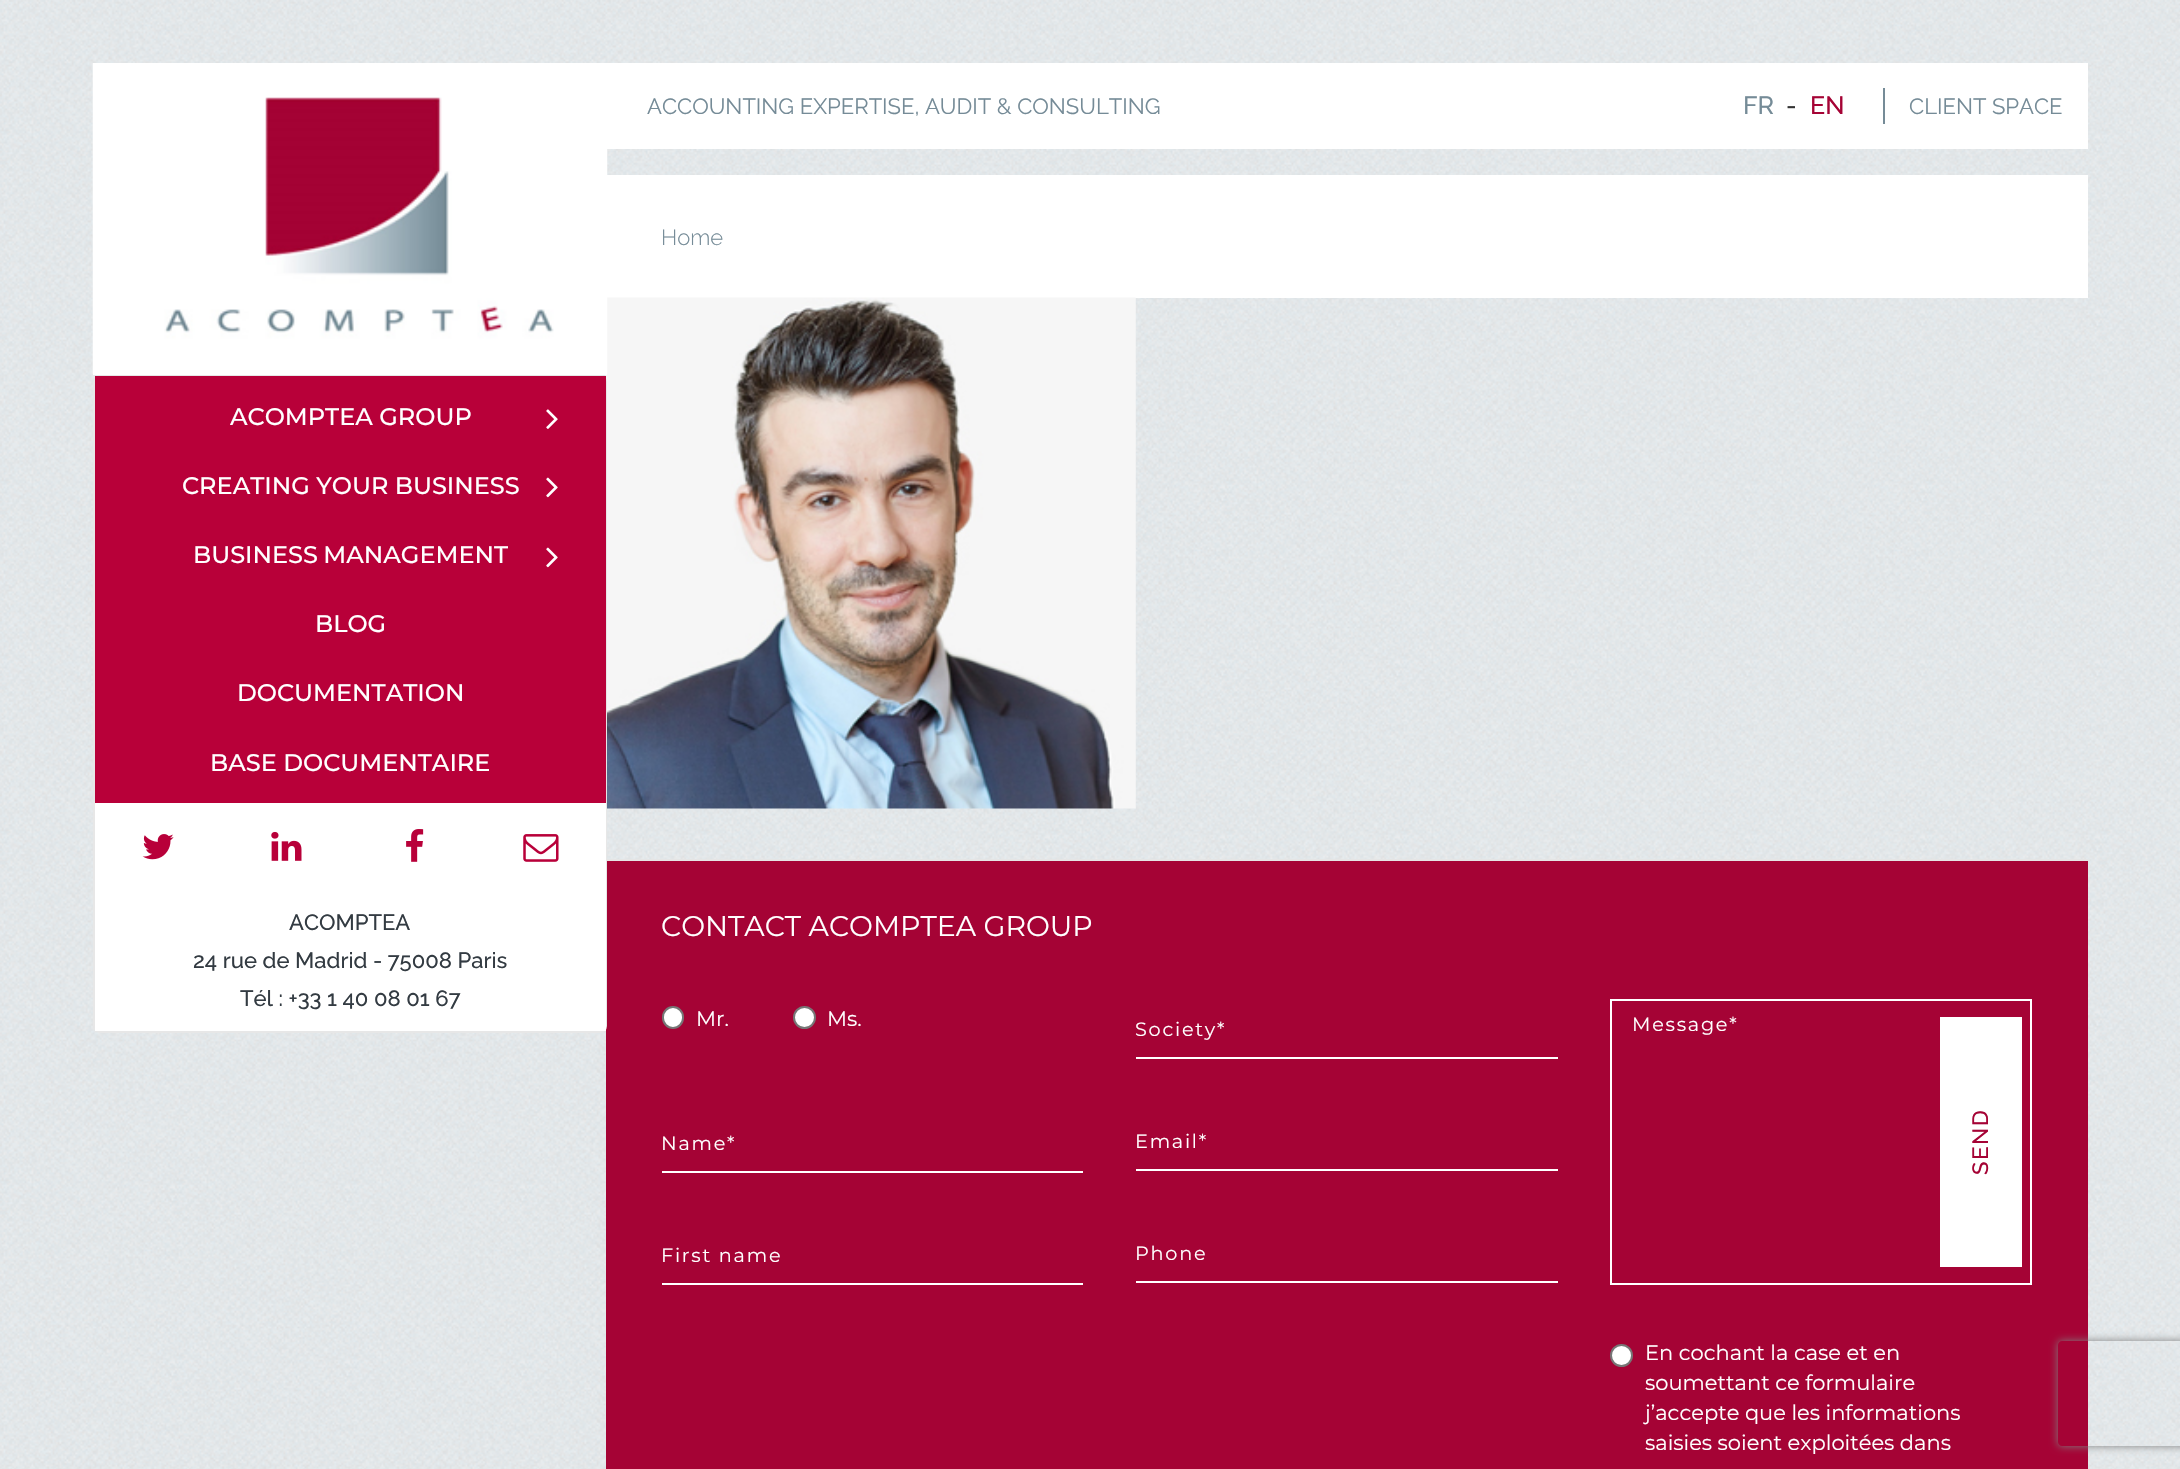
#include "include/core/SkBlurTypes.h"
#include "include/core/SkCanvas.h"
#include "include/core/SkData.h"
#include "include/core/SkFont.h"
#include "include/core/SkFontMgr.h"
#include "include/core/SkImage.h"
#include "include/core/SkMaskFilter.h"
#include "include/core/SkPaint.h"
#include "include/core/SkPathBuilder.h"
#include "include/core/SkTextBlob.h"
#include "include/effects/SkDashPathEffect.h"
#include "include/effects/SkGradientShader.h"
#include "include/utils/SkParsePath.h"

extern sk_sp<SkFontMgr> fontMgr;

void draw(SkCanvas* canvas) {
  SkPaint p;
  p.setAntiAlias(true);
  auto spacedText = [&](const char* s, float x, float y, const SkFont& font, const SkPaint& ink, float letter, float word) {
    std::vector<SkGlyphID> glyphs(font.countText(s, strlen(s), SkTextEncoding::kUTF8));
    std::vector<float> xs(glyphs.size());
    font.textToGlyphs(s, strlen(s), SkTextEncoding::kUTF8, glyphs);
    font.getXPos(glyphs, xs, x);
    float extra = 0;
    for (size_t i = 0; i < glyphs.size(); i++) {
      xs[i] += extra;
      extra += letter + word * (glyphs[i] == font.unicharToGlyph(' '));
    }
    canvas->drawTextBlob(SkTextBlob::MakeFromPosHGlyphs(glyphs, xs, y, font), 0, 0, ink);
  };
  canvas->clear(SK_ColorWHITE);
  canvas->drawImageRect(SkImages::DeferredFromEncodedData(SkData::MakeFromFileName("images/1.png")), SkRect::MakeLTRB(0, 0, 2180, 1469), SkSamplingOptions());
  p.setColor(SK_ColorWHITE);
  canvas->drawRect(SkRect::MakeLTRB(607, 175, 2088, 298), p);
  canvas->drawImageRect(SkImages::DeferredFromEncodedData(SkData::MakeFromFileName("images/9.png")), SkRect::MakeLTRB(605, 297, 1136, 809), SkSamplingOptions());
  canvas->drawRect(SkRect::MakeLTRB(93, 374, 607, 375), p);
  canvas->drawRect(SkRect::MakeLTRB(607, 63, 2088, 149), p);
  canvas->drawImageRect(SkImages::DeferredFromEncodedData(SkData::MakeFromFileName("images/2.png")), SkRect::MakeLTRB(92, 63, 608, 374), SkSamplingOptions());
  p.setColor(SkColorSetRGB(229, 229, 229));
  canvas->drawRect(SkRect::MakeLTRB(606, 859, 2088, 861), p);
  p.setColor(SkColorSetRGB(165, 3, 53));
  canvas->drawRect(SkRect::MakeLTRB(606, 861, 2088, 1469), p);
  p.setStyle(SkPaint::kStroke_Style);
  p.setStrokeWidth(2);
  p.setColor(SkColorSetRGB(231, 231, 231));
  canvas->drawRoundRect(SkRect::MakeLTRB(94, 376, 606, 1032), 6, 6, p);
  p.setStyle(SkPaint::kFill_Style);
  p.setColor(SkColorSetRGB(184, 0, 57));
  canvas->drawRect(SkRect::MakeLTRB(95, 376, 606, 803), p);
  canvas->drawImageRect(SkImages::DeferredFromEncodedData(SkData::MakeFromFileName("images/3.png")), SkRect::MakeLTRB(546, 409, 558, 429), SkSamplingOptions());
  canvas->drawImageRect(SkImages::DeferredFromEncodedData(SkData::MakeFromFileName("images/4.png")), SkRect::MakeLTRB(546, 477, 558, 498), SkSamplingOptions());
  canvas->drawImageRect(SkImages::DeferredFromEncodedData(SkData::MakeFromFileName("images/4.png")), SkRect::MakeLTRB(546, 547, 558, 568), SkSamplingOptions());
  p.setColor(SK_ColorWHITE);
  canvas->drawRect(SkRect::MakeLTRB(95, 803, 606, 1031), p);
  canvas->drawImageRect(SkImages::DeferredFromEncodedData(SkData::MakeFromFileName("images/5.png")), SkRect::MakeLTRB(142, 834, 174, 860), SkSamplingOptions());
  canvas->drawImageRect(SkImages::DeferredFromEncodedData(SkData::MakeFromFileName("images/6.png")), SkRect::MakeLTRB(271, 831, 302, 861), SkSamplingOptions());
  canvas->drawImageRect(SkImages::DeferredFromEncodedData(SkData::MakeFromFileName("images/7.png")), SkRect::MakeLTRB(406, 829, 424, 862), SkSamplingOptions());
  canvas->drawImageRect(SkImages::DeferredFromEncodedData(SkData::MakeFromFileName("images/8.png")), SkRect::MakeLTRB(523, 834, 559, 862), SkSamplingOptions());
  p.setColor(SkColorSetRGB(117, 139, 151));
  canvas->drawRect(SkRect::MakeLTRB(1883, 88, 1885, 124), p);
  p.setColor(SK_ColorWHITE);
  canvas->drawRoundRect(SkRect::MakeLTRB(663, 1007, 683, 1028), 10, 10, p);
  p.setStyle(SkPaint::kStroke_Style);
  p.setColor(SkColorSetRGB(118, 118, 118));
  canvas->drawRoundRect(SkRect::MakeLTRB(663, 1007, 683, 1028), 10, 10, p);
  p.setStyle(SkPaint::kFill_Style);
  p.setColor(SK_ColorWHITE);
  canvas->drawCircle(804.5f, 1017.5f, 10.5f, p);
  p.setStyle(SkPaint::kStroke_Style);
  p.setColor(SkColorSetRGB(118, 118, 118));
  canvas->drawCircle(804.5f, 1017.5f, 10.5f, p);
  p.setStyle(SkPaint::kFill_Style);
  p.setColor(SK_ColorWHITE);
  canvas->drawRect(SkRect::MakeLTRB(662, 1171, 1083, 1173), p);
  canvas->drawRect(SkRect::MakeLTRB(662, 1283, 1083, 1285), p);
  canvas->drawRect(SkRect::MakeLTRB(1136, 1057, 1558, 1059), p);
  canvas->drawRect(SkRect::MakeLTRB(1136, 1169, 1558, 1171), p);
  canvas->drawRect(SkRect::MakeLTRB(1136, 1281, 1558, 1283), p);
  p.setStyle(SkPaint::kStroke_Style);
  canvas->drawRect(SkRect::MakeLTRB(1611, 1000, 2031, 1284), p);
  p.setStyle(SkPaint::kFill_Style);
  canvas->drawRect(SkRect::MakeLTRB(1940, 1017, 2022, 1267), p);
  canvas->drawCircle(1621.5f, 1355.5f, 10.5f, p);
  p.setStyle(SkPaint::kStroke_Style);
  p.setColor(SkColorSetRGB(118, 118, 118));
  canvas->drawCircle(1621.5f, 1355.5f, 10.5f, p);
  canvas->save();
  canvas->clipPath(SkPathBuilder(SkPathFillType::kEvenOdd).moveTo(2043, 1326).lineTo(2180, 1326).lineTo(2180, 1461).lineTo(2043, 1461).close().moveTo(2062, 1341).lineTo(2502, 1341).cubicTo(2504, 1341, 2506, 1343, 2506, 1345).lineTo(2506, 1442).cubicTo(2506, 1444, 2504, 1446, 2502, 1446).lineTo(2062, 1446).cubicTo(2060, 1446, 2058, 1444, 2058, 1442).lineTo(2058, 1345).cubicTo(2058, 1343, 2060, 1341, 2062, 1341).close().detach(), true);
  p.setStyle(SkPaint::kFill_Style);
  p.setColor(SkColorSetRGB(128, 128, 128));
  p.setMaskFilter(SkMaskFilter::MakeBlur(kNormal_SkBlurStyle, 4.5f));
  canvas->drawRoundRect(SkRect::MakeLTRB(2058, 1341, 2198, 1446), 4, 4, p);
  p.setMaskFilter(nullptr);
  canvas->restore();
  SkFont font1(fontMgr->matchFamilyStyle("Montserrat", SkFontStyle(500, SkFontStyle::kNormal_Width, SkFontStyle::kUpright_Slant)), 24);
  font1.setSubpixel(true);
  p.setColor(SK_ColorWHITE);
  canvas->drawString("ACOMPTEA GROUP", 230, 425, font1, p);
  canvas->drawString("CREATING YOUR BUSINESS", 182, 494, font1, p);
  spacedText("BUSINESS MANAGEMENT", 193, 563, font1, p, 0, -1);
  canvas->drawString("BLOG", 315, 632, font1, p);
  canvas->drawString("DOCUMENTATION", 237, 701, font1, p);
  canvas->drawString("BASE DOCUMENTAIRE", 210, 771, font1, p);
  SkFont font2(fontMgr->matchFamilyStyle("Raleway", SkFontStyle(500, SkFontStyle::kNormal_Width, SkFontStyle::kUpright_Slant)), 22.05f);
  font2.setSubpixel(true);
  p.setColor(SkColorSetRGB(51, 59, 66));
  canvas->drawString("ACOMPTEA", 289, 930, font2, p);
  canvas->drawString("24 rue de Madrid - 75008 Paris", 193, 968, font2, p);
  canvas->drawString("Tél : +33 1 40 08 01 67", 240, 1006, font2, p);
  SkFont font3(fontMgr->matchFamilyStyle("Raleway", SkFontStyle::Normal()), 22.05f);
  font3.setSubpixel(true);
  p.setColor(SkColorSetRGB(117, 139, 151));
  canvas->drawString("ACCOUNTING EXPERTISE, AUDIT & CONSULTING", 647, 114, font3, p);
  SkFont font4(fontMgr->matchFamilyStyle("Raleway", SkFontStyle(500, SkFontStyle::kNormal_Width, SkFontStyle::kUpright_Slant)), 25);
  font4.setSubpixel(true);
  canvas->drawString("FR", 1743, 114, font4, p);
  p.setColor(SkColorSetRGB(51, 51, 51));
  canvas->drawString("-", 1786, 114, font4, p);
  p.setColor(SkColorSetRGB(165, 3, 53));
  canvas->drawString("EN", 1810, 114, font4, p);
  p.setColor(SkColorSetRGB(117, 139, 151));
  canvas->drawString("CLIENT SPACE", 1909, 114, font3, p);
  SkFont font5(fontMgr->matchFamilyStyle("Raleway", SkFontStyle(300, SkFontStyle::kNormal_Width, SkFontStyle::kUpright_Slant)), 22);
  font5.setSubpixel(true);
  canvas->drawString("Home", 661, 245, font5, p);
  SkFont font6(fontMgr->matchFamilyStyle("Montserrat", SkFontStyle::Normal()), 28.4f);
  font6.setSubpixel(true);
  p.setColor(SK_ColorWHITE);
  canvas->drawString("CONTACT ACOMPTEA GROUP", 661, 936, font6, p);
  SkFont font7(fontMgr->matchFamilyStyle("Montserrat", SkFontStyle::Normal()), 21);
  font7.setSubpixel(true);
  canvas->drawString("Mr.", 696, 1026, font7, p);
  canvas->drawString("Ms.", 827, 1026, font7, p);
  SkFont font8(fontMgr->matchFamilyStyle("Montserrat", SkFontStyle::Normal()), 19.25f);
  font8.setSubpixel(true);
  spacedText("Name*", 661, 1150, font8, p, 1.75f, 0);
  spacedText("First name", 661, 1262, font8, p, 1.75f, 0);
  spacedText("Society*", 1135, 1036, font8, p, 1.75f, 0);
  spacedText("Email*", 1135, 1148, font8, p, 1.75f, 0);
  spacedText("Phone", 1135, 1260, font8, p, 1.75f, 0);
  spacedText("Message*", 1632, 1031, font8, p, 1.75f, 0);
  p.setColor(SkColorSetRGB(165, 3, 53));
  canvas->save();
  canvas->rotate(-90, 1988, 1175);
  spacedText("SEND", 1988, 1175, font2, p, 1.75f, 0);
  canvas->restore();
  p.setColor(SK_ColorWHITE);
  canvas->drawString("En cochant la case et en", 1645, 1360, font7, p);
  canvas->drawString("soumettant ce formulaire", 1645, 1390, font7, p);
  canvas->drawString("j’accepte que les informations", 1645, 1420, font7, p);
  canvas->drawString("saisies soient exploitées dans", 1645, 1450, font7, p);
}
